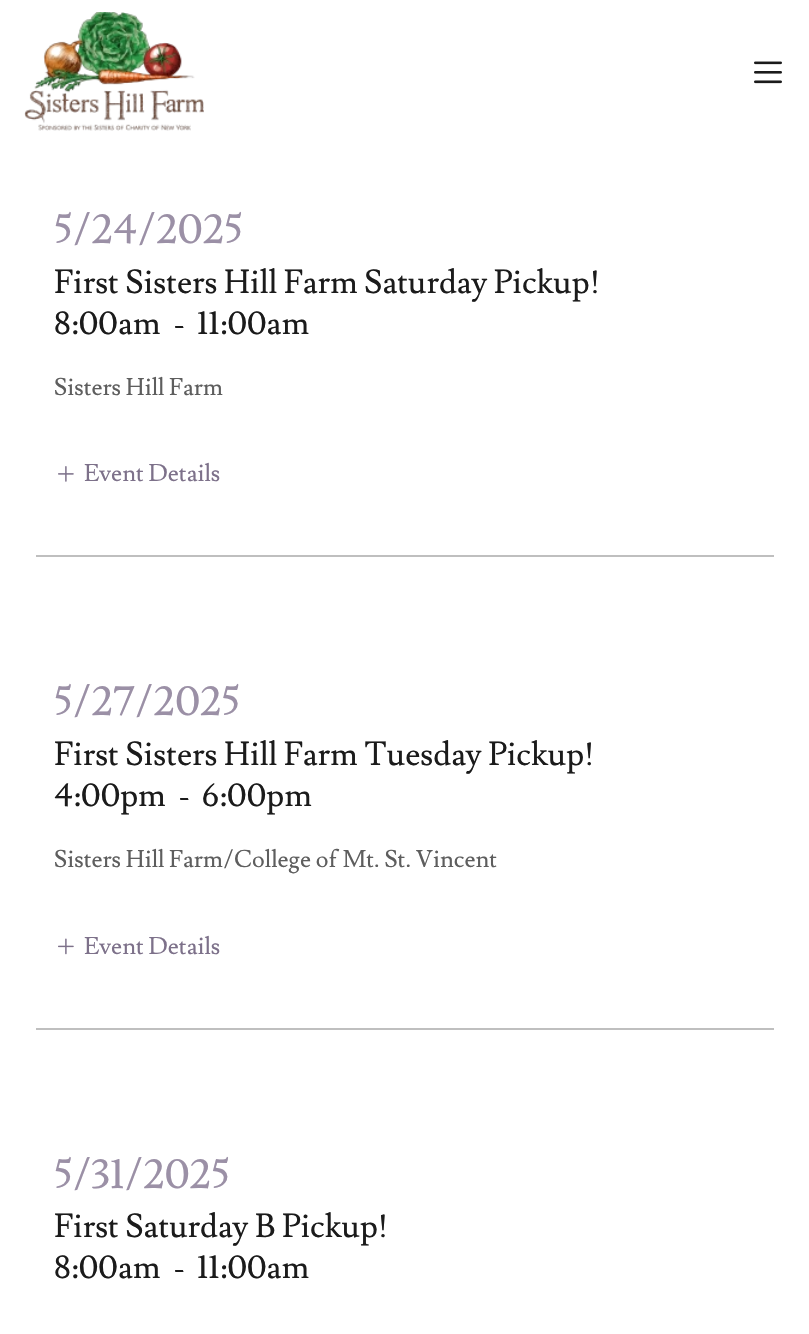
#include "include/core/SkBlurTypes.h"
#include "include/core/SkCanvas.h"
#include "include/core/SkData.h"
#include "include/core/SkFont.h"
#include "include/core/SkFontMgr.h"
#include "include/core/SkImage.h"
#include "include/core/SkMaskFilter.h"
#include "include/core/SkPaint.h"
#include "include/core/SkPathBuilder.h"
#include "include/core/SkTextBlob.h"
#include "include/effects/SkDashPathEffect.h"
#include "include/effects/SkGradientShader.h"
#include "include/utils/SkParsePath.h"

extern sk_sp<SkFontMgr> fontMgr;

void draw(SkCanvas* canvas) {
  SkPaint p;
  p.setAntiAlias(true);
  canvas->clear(SK_ColorWHITE);
  canvas->drawImageRect(SkImages::DeferredFromEncodedData(SkData::MakeFromFileName("images/1.png")), SkRect::MakeLTRB(24, 12, 204, 131), SkSamplingOptions());
  canvas->drawImageRect(SkImages::DeferredFromEncodedData(SkData::MakeFromFileName("images/2.png")), SkRect::MakeLTRB(754, 61, 782, 84), SkSamplingOptions());
  p.setColor(SkColorSetRGB(191, 191, 191));
  canvas->drawRect(SkRect::MakeLTRB(36, 555, 774, 557), p);
  canvas->drawImageRect(SkImages::DeferredFromEncodedData(SkData::MakeFromFileName("images/3.png")), SkRect::MakeLTRB(58, 466, 74, 482), SkSamplingOptions());
  canvas->drawRect(SkRect::MakeLTRB(36, 1028, 774, 1030), p);
  canvas->drawImageRect(SkImages::DeferredFromEncodedData(SkData::MakeFromFileName("images/4.png")), SkRect::MakeLTRB(58, 938, 74, 955), SkSamplingOptions());
  SkFont font1(fontMgr->matchFamilyStyle("Lusitana", SkFontStyle::Normal()), 42);
  font1.setSubpixel(true);
  p.setColor(SkColorSetRGB(155, 144, 166));
  canvas->drawString("5/24/2025", 54, 243, font1, p);
  SkFont font2(fontMgr->matchFamilyStyle("Lusitana", SkFontStyle::Normal()), 33);
  font2.setSubpixel(true);
  p.setColor(SkColorSetRGB(27, 27, 27));
  canvas->drawString("First Sisters Hill Farm Saturday Pickup!", 54, 293, font2, p);
  canvas->drawString("8:00am", 54, 334, font2, p);
  canvas->drawString("-", 173, 334, font2, p);
  canvas->drawString("11:00am", 197, 334, font2, p);
  SkFont font3(fontMgr->matchFamilyStyle("Lusitana", SkFontStyle::Normal()), 24);
  font3.setSubpixel(true);
  p.setColor(SkColorSetRGB(94, 94, 94));
  canvas->drawString("Sisters Hill Farm", 54, 395, font3, p);
  p.setColor(SkColorSetRGB(125, 113, 138));
  canvas->drawString("Event Details", 84, 481, font3, p);
  p.setColor(SkColorSetRGB(155, 144, 166));
  canvas->drawString("5/27/2025", 54, 715, font1, p);
  p.setColor(SkColorSetRGB(27, 27, 27));
  canvas->drawString("First Sisters Hill Farm Tuesday Pickup!", 54, 765, font2, p);
  canvas->drawString("4:00pm", 54, 806, font2, p);
  canvas->drawString("-", 178, 806, font2, p);
  canvas->drawString("6:00pm", 202, 806, font2, p);
  p.setColor(SkColorSetRGB(94, 94, 94));
  canvas->drawString("Sisters Hill Farm/College of Mt. St. Vincent", 54, 867, font3, p);
  p.setColor(SkColorSetRGB(125, 113, 138));
  canvas->drawString("Event Details", 84, 954, font3, p);
  p.setColor(SkColorSetRGB(155, 144, 166));
  canvas->drawString("5/31/2025", 54, 1188, font1, p);
  p.setColor(SkColorSetRGB(27, 27, 27));
  canvas->drawString("First Saturday B Pickup!", 54, 1237, font2, p);
  canvas->drawString("8:00am", 54, 1278, font2, p);
  canvas->drawString("-", 173, 1278, font2, p);
  canvas->drawString("11:00am", 197, 1278, font2, p);
}
